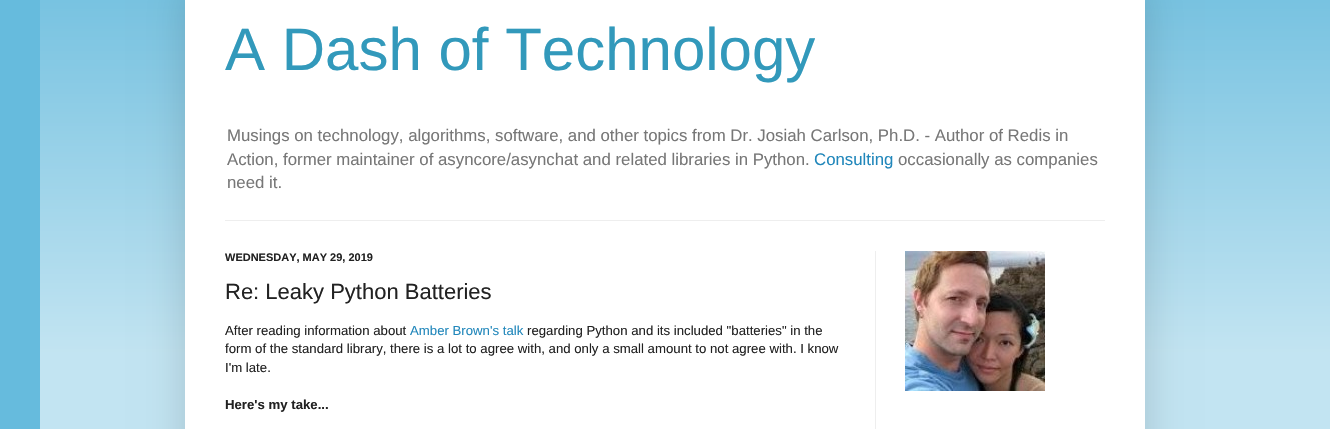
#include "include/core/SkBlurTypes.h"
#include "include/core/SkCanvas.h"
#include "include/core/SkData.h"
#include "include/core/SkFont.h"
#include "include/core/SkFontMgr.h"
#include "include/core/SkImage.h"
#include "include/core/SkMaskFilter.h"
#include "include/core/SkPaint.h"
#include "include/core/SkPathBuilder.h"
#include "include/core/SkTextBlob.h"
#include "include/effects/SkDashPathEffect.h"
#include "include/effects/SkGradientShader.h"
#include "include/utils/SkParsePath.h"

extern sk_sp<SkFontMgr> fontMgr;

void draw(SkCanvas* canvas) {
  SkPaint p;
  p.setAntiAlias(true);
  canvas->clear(SkColorSetRGB(102, 187, 221));
  canvas->drawImageRect(SkImages::DeferredFromEncodedData(SkData::MakeFromFileName("images/1.png")), SkRect::MakeLTRB(40, 0, 1330, 353), SkSamplingOptions());
  p.setColor(SkColorSetRGB(194, 228, 242));
  canvas->drawRect(SkRect::MakeLTRB(40, 353, 1330, 429), p);
  p.setColor(SkColorSetARGB(38, 0, 0, 0));
  p.setMaskFilter(SkMaskFilter::MakeBlur(kNormal_SkBlurStyle, 20));
  canvas->drawRect(SkRect::MakeLTRB(185, -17, 1145, 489), p);
  p.setMaskFilter(nullptr);
  p.setColor(SK_ColorWHITE);
  canvas->drawRect(SkRect::MakeLTRB(185, 0, 1145, 429), p);
  p.setColor(SkColorSetRGB(238, 238, 238));
  canvas->drawRect(SkRect::MakeLTRB(225, 220, 1105, 221), p);
  canvas->drawImageRect(SkImages::DeferredFromEncodedData(SkData::MakeFromFileName("images/2.png")), SkRect::MakeLTRB(905, 251, 1045, 391), SkSamplingOptions());
  canvas->drawRect(SkRect::MakeLTRB(875, 251, 876, 429), p);
  SkFont font1(fontMgr->matchFamilyStyle("Liberation Sans", SkFontStyle::Normal()), 60);
  font1.setSubpixel(true);
  p.setColor(SkColorSetRGB(50, 153, 187));
  canvas->drawString("A Dash of Technology", 225, 70, font1, p);
  SkFont font2(fontMgr->matchFamilyStyle("Liberation Sans", SkFontStyle::Normal()), 16.8f);
  font2.setSubpixel(true);
  p.setColor(SkColorSetRGB(119, 119, 119));
  canvas->drawString("Musings on technology, algorithms, software, and other topics from Dr. Josiah Carlson, Ph.D. - Author of Redis in", 227, 141, font2, p);
  canvas->drawString("Action, former maintainer of asyncore/asynchat and related libraries in Python.", 227, 165, font2, p);
  p.setColor(SkColorSetRGB(33, 135, 187));
  canvas->drawString("Consulting", 814, 165, font2, p);
  p.setColor(SkColorSetRGB(119, 119, 119));
  canvas->drawString("occasionally as companies", 898, 165, font2, p);
  canvas->drawString("need it.", 227, 188, font2, p);
  SkFont font3(fontMgr->matchFamilyStyle("Liberation Sans", SkFontStyle::Bold()), 11);
  font3.setSubpixel(true);
  p.setColor(SkColorSetRGB(34, 34, 34));
  canvas->drawString("WEDNESDAY, MAY 29, 2019", 225, 261, font3, p);
  SkFont font4(fontMgr->matchFamilyStyle("Liberation Sans", SkFontStyle::Normal()), 22);
  font4.setSubpixel(true);
  canvas->drawString("Re: Leaky Python Batteries", 225, 299, font4, p);
  SkFont font5(fontMgr->matchFamilyStyle("Liberation Sans", SkFontStyle::Normal()), 13.2f);
  font5.setSubpixel(true);
  canvas->drawString("After reading information about", 225, 335, font5, p);
  p.setColor(SkColorSetRGB(33, 135, 187));
  canvas->drawString("Amber Brown's talk", 410, 335, font5, p);
  p.setColor(SkColorSetRGB(34, 34, 34));
  canvas->drawString("regarding Python and its included \"batteries\" in the", 527, 335, font5, p);
  canvas->drawString("form of the standard library, there is a lot to agree with, and only a small amount to not agree with. I know", 225, 353, font5, p);
  canvas->drawString("I'm late.", 225, 372, font5, p);
  SkFont font6(fontMgr->matchFamilyStyle("Liberation Sans", SkFontStyle::Bold()), 13.2f);
  font6.setSubpixel(true);
  canvas->drawString("Here's my take...", 225, 409, font6, p);
}
